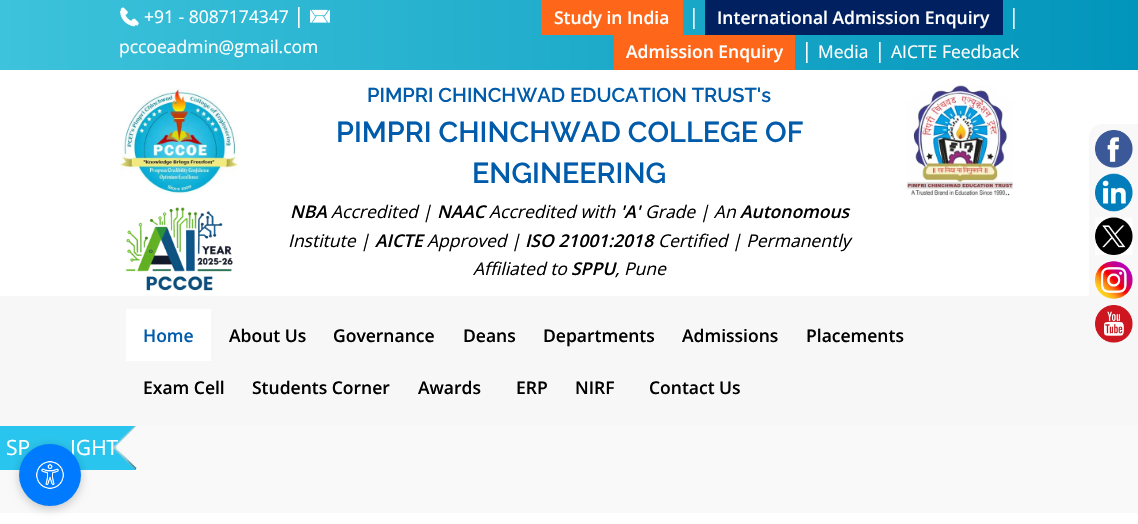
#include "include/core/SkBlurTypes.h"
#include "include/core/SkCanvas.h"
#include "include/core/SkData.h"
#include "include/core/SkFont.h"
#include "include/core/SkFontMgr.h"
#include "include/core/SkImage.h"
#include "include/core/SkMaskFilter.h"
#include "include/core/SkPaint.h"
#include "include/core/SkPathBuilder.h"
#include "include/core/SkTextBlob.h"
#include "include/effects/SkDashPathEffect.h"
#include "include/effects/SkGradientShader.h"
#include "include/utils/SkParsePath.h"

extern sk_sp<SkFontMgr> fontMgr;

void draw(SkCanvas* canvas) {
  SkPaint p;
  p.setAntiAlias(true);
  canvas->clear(SK_ColorWHITE);
  {
    const SkColor colors[] = {SkColorSetRGB(2, 149, 187), SkColorSetRGB(61, 195, 219)};
    const float stops[] = {0, 1};
    const SkPoint ends[] = {{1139, 35}, {0, 35}};
    p.setShader(SkGradientShader::MakeLinear(ends, colors, stops, 2, SkTileMode::kClamp));
    p.setAlpha(255);
  }
  canvas->drawRect(SkRect::MakeLTRB(0, 0, 1138, 70), p);
  canvas->drawImageRect(SkImages::DeferredFromEncodedData(SkData::MakeFromFileName("images/1.png")), SkRect::MakeLTRB(120, 7, 139, 27), SkSamplingOptions());
  canvas->drawImageRect(SkImages::DeferredFromEncodedData(SkData::MakeFromFileName("images/2.png")), SkRect::MakeLTRB(310, 9, 330, 23), SkSamplingOptions());
  p.setShader(nullptr);
  p.setColor(SkColorSetRGB(254, 103, 25));
  canvas->drawRect(SkRect::MakeLTRB(541, 0, 683, 35), p);
  p.setColor(SkColorSetRGB(0, 32, 96));
  canvas->drawRect(SkRect::MakeLTRB(705, 0, 1003, 35), p);
  p.setColor(SkColorSetRGB(254, 103, 25));
  canvas->drawRect(SkRect::MakeLTRB(614, 35, 795, 70), p);
  canvas->drawImageRect(SkImages::DeferredFromEncodedData(SkData::MakeFromFileName("images/3.png")), SkRect::MakeLTRB(120, 88, 238, 194), SkSamplingOptions());
  canvas->drawImageRect(SkImages::DeferredFromEncodedData(SkData::MakeFromFileName("images/4.png")), SkRect::MakeLTRB(125, 207, 233, 291), SkSamplingOptions());
  canvas->drawImageRect(SkImages::DeferredFromEncodedData(SkData::MakeFromFileName("images/5.png")), SkRect::MakeLTRB(906, 85, 1013, 196), SkSamplingOptions());
  p.setColor(SkColorSetRGB(247, 247, 247));
  canvas->drawRect(SkRect::MakeLTRB(0, 296, 1138, 426), p);
  p.setColor(SkColorSetARGB(214, 247, 247, 247));
  canvas->drawPath(SkPathBuilder().moveTo(1102, 124).lineTo(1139, 124).lineTo(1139, 349).lineTo(1102, 349).cubicTo(1095, 349, 1089, 343, 1089, 336).lineTo(1089, 137).cubicTo(1089, 130, 1095, 124, 1102, 124).close().detach(), p);
  canvas->drawImageRect(SkImages::DeferredFromEncodedData(SkData::MakeFromFileName("images/6.png")), SkRect::MakeLTRB(1095, 130, 1133, 168), SkSamplingOptions());
  canvas->drawImageRect(SkImages::DeferredFromEncodedData(SkData::MakeFromFileName("images/7.png")), SkRect::MakeLTRB(1095, 173, 1133, 212), SkSamplingOptions());
  canvas->drawImageRect(SkImages::DeferredFromEncodedData(SkData::MakeFromFileName("images/8.png")), SkRect::MakeLTRB(1095, 217, 1133, 255), SkSamplingOptions());
  canvas->drawImageRect(SkImages::DeferredFromEncodedData(SkData::MakeFromFileName("images/9.png")), SkRect::MakeLTRB(1095, 261, 1133, 299), SkSamplingOptions());
  canvas->drawImageRect(SkImages::DeferredFromEncodedData(SkData::MakeFromFileName("images/10.png")), SkRect::MakeLTRB(1095, 305, 1133, 343), SkSamplingOptions());
  p.setColor(SK_ColorWHITE);
  canvas->drawRect(SkRect::MakeLTRB(126, 309, 211, 361), p);
  p.setColor(SkColorSetRGB(249, 249, 249));
  canvas->drawRect(SkRect::MakeLTRB(0, 426, 1138, 513), p);
  p.setColor(SkColorSetRGB(42, 197, 238));
  canvas->drawRect(SkRect::MakeLTRB(0, 426, 136, 470), p);
  p.setColor(SkColorSetARGB(51, 0, 0, 0));
  p.setMaskFilter(SkMaskFilter::MakeBlur(kNormal_SkBlurStyle, 5));
  canvas->drawRoundRect(SkRect::MakeLTRB(19, 446, 81, 509), 31, 31, p);
  p.setMaskFilter(nullptr);
  canvas->drawImageRect(SkImages::DeferredFromEncodedData(SkData::MakeFromFileName("images/12.png")), SkRect::MakeLTRB(112, 426, 137, 469), SkSamplingOptions());
  SkFont font1(fontMgr->matchFamilyStyle("Open Sans", SkFontStyle::Normal()), 17.5f);
  font1.setSubpixel(true);
  p.setColor(SK_ColorWHITE);
  canvas->drawString("+91 - 8087174347", 144, 23, font1, p);
  SkFont font2(fontMgr->matchFamilyStyle("Open Sans", SkFontStyle::Normal()), 21);
  font2.setSubpixel(true);
  canvas->drawString("|", 293, 23, font2, p);
  canvas->drawString("pccoeadmin@gmail.com", 119, 53, font1, p);
  SkFont font3(fontMgr->matchFamilyStyle("Open Sans", SkFontStyle(600, SkFontStyle::kNormal_Width, SkFontStyle::kUpright_Slant)), 17.5f);
  font3.setSubpixel(true);
  canvas->drawString("Study in India", 554, 24, font3, p);
  canvas->drawString("|", 688, 24, font2, p);
  canvas->drawString("International Admission Enquiry", 717, 24, font3, p);
  canvas->drawString("|", 1008, 24, font2, p);
  canvas->drawString("Admission Enquiry", 626, 58, font3, p);
  canvas->drawString("|", 801, 58, font2, p);
  canvas->drawString("Media", 818, 58, font1, p);
  canvas->drawString("|", 874, 58, font2, p);
  canvas->drawString("AICTE Feedback", 891, 58, font1, p);
  SkFont font4(fontMgr->matchFamilyStyle("Raleway", SkFontStyle(600, SkFontStyle::kNormal_Width, SkFontStyle::kUpright_Slant)), 20);
  font4.setSubpixel(true);
  p.setColor(SkColorSetRGB(0, 91, 171));
  canvas->drawString("PIMPRI CHINCHWAD EDUCATION TRUST's", 367, 102, font4, p);
  SkFont font5(fontMgr->matchFamilyStyle("Raleway", SkFontStyle(600, SkFontStyle::kNormal_Width, SkFontStyle::kUpright_Slant)), 28.75f);
  font5.setSubpixel(true);
  canvas->drawString("PIMPRI CHINCHWAD COLLEGE OF", 336, 142, font5, p);
  canvas->drawString("ENGINEERING", 472, 183, font5, p);
  SkFont font6(fontMgr->matchFamilyStyle("Open Sans", SkFontStyle(600, SkFontStyle::kNormal_Width, SkFontStyle::kItalic_Slant)), 17.5f);
  font6.setSubpixel(true);
  p.setColor(SK_ColorBLACK);
  canvas->drawString("NBA", 290, 218, font6, p);
  SkFont font7(fontMgr->matchFamilyStyle("Open Sans", SkFontStyle::Italic()), 17.5f);
  font7.setSubpixel(true);
  canvas->drawString("Accredited |", 331, 218, font7, p);
  canvas->drawString("NAAC", 437, 218, font6, p);
  canvas->drawString("Accredited with", 489, 218, font7, p);
  canvas->drawString("'A'", 620, 218, font6, p);
  canvas->drawString("Grade | An", 645, 218, font7, p);
  canvas->drawString("Autonomous", 740, 218, font6, p);
  canvas->drawString("Institute |", 288, 247, font7, p);
  canvas->drawString("AICTE", 375, 247, font6, p);
  canvas->drawString("Approved |", 427, 247, font7, p);
  canvas->drawString("ISO 21001:2018", 525, 247, font6, p);
  canvas->drawString("Certified | Permanently", 658, 247, font7, p);
  canvas->drawString("Affiliated to", 473, 275, font7, p);
  canvas->drawString("SPPU", 571, 275, font6, p);
  canvas->drawString(", Pune", 615, 275, font7, p);
  p.setColor(SkColorSetRGB(0, 91, 171));
  canvas->drawString("Home", 143, 342, font3, p);
  p.setColor(SK_ColorBLACK);
  canvas->drawString("About Us", 229, 342, font3, p);
  canvas->drawString("Governance", 333, 342, font3, p);
  canvas->drawString("Deans", 463, 342, font3, p);
  canvas->drawString("Departments", 543, 342, font3, p);
  canvas->drawString("Admissions", 682, 342, font3, p);
  canvas->drawString("Placements", 806, 342, font3, p);
  canvas->drawString("Exam Cell", 143, 394, font3, p);
  canvas->drawString("Students Corner", 252, 394, font3, p);
  canvas->drawString("Awards", 418, 394, font3, p);
  canvas->drawString("ERP", 516, 394, font3, p);
  canvas->drawString("NIRF", 575, 394, font3, p);
  canvas->drawString("Contact Us", 649, 394, font3, p);
  p.setColor(SK_ColorWHITE);
  canvas->drawString("SP", 6, 455, font2, p);
  canvas->drawString("IGHT", 70, 455, font2, p);
  p.setColor(SkColorSetRGB(0, 123, 255));
  canvas->drawCircle(50, 475, 31, p);
  canvas->drawImageRect(SkImages::DeferredFromEncodedData(SkData::MakeFromFileName("images/11.png")), SkRect::MakeLTRB(36, 461, 64, 489), SkSamplingOptions());
}
